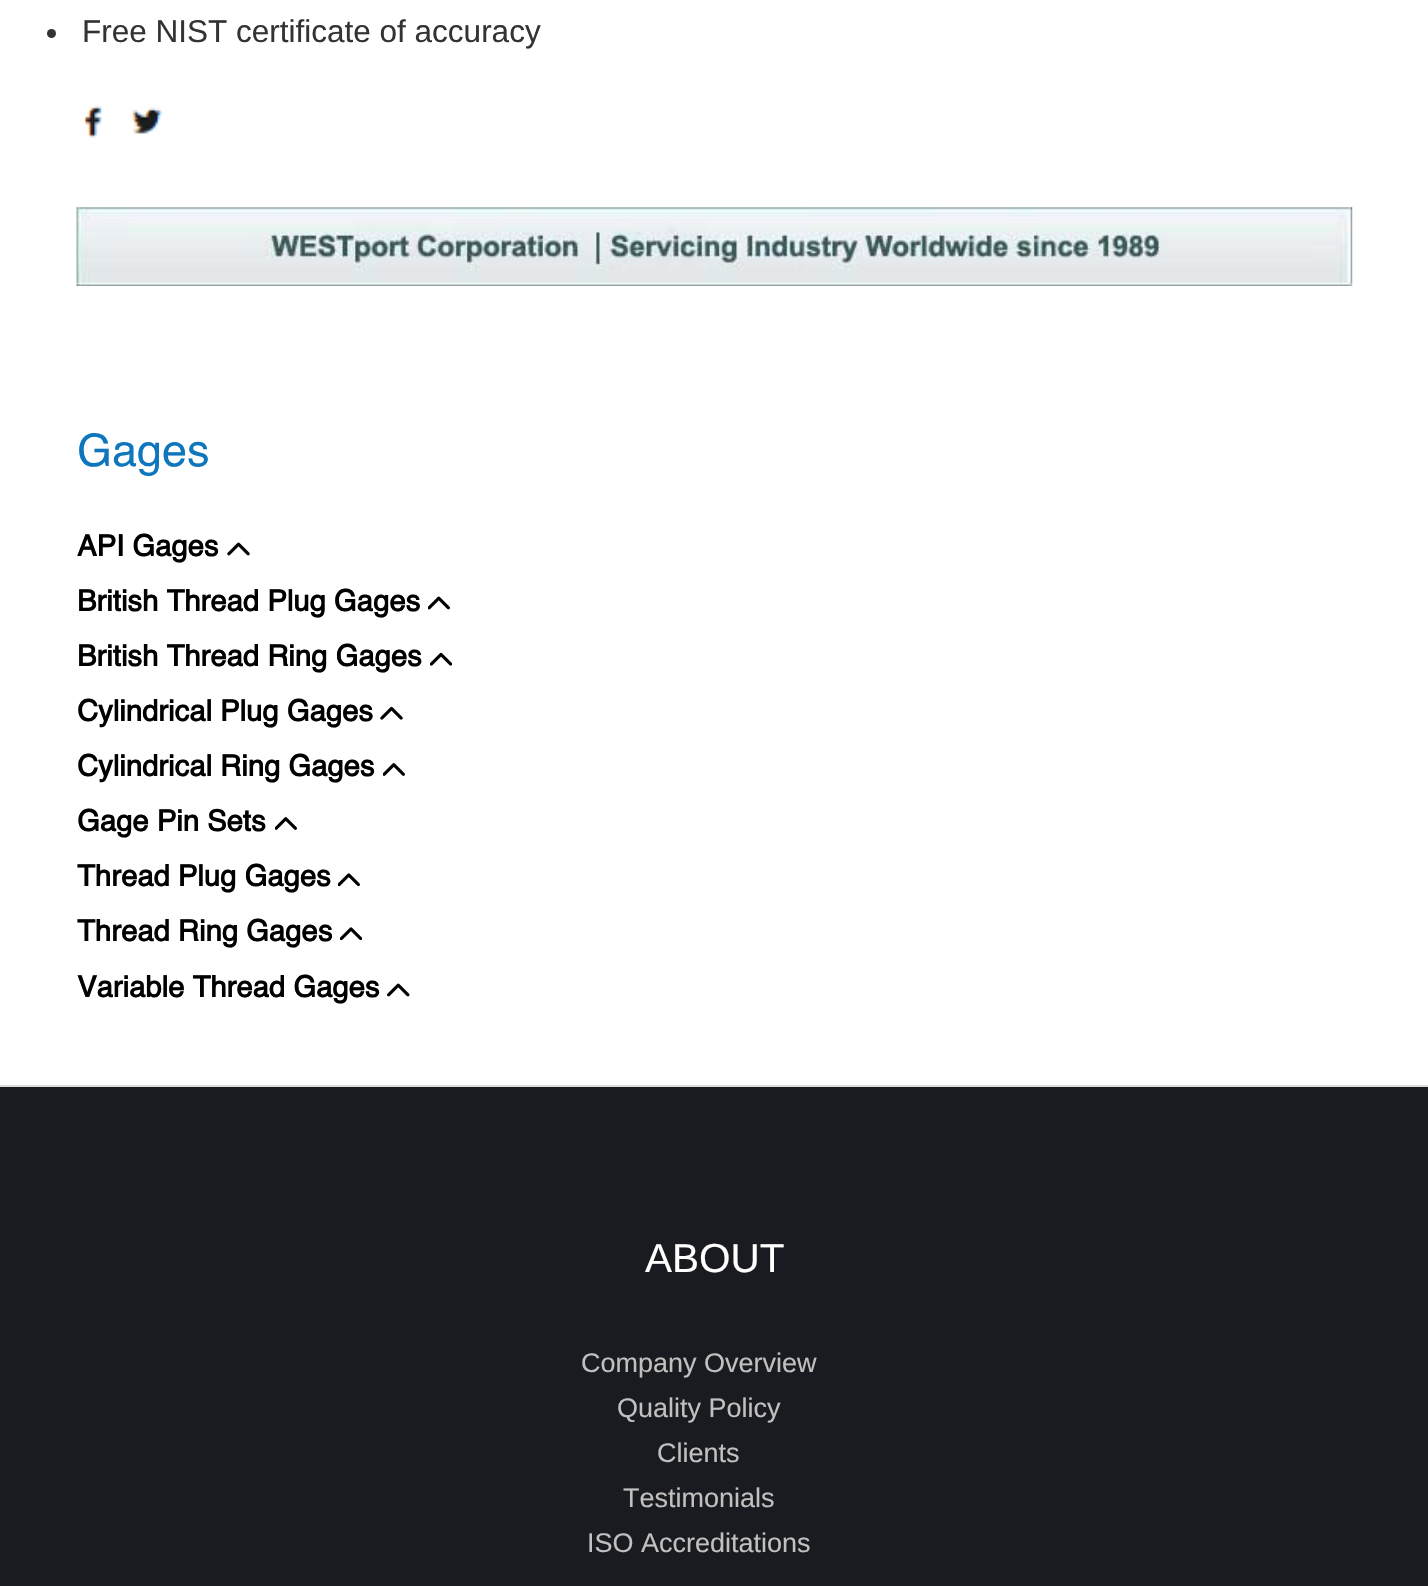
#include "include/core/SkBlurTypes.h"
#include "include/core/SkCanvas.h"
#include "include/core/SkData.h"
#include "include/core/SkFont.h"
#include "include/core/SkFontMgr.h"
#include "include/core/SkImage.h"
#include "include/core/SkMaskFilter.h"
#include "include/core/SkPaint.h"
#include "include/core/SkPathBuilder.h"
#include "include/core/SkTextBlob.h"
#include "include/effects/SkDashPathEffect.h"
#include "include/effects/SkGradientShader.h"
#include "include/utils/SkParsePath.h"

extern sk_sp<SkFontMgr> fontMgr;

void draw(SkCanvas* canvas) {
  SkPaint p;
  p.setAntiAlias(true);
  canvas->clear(SK_ColorWHITE);
  p.setColor(SkColorSetRGB(51, 51, 51));
  canvas->drawCircle(51.5f, 33.5f, 4.5f, p);
  canvas->drawImageRect(SkImages::DeferredFromEncodedData(SkData::MakeFromFileName("images/1.png")), SkRect::MakeLTRB(83, 106, 102, 138), SkSamplingOptions());
  canvas->drawImageRect(SkImages::DeferredFromEncodedData(SkData::MakeFromFileName("images/2.png")), SkRect::MakeLTRB(132, 107, 163, 134), SkSamplingOptions());
  canvas->drawImageRect(SkImages::DeferredFromEncodedData(SkData::MakeFromFileName("images/3.png")), SkRect::MakeLTRB(76, 207, 1353, 286), SkSamplingOptions());
  canvas->drawImageRect(SkImages::DeferredFromEncodedData(SkData::MakeFromFileName("images/4.png")), SkRect::MakeLTRB(227, 542, 250, 556), SkSamplingOptions());
  canvas->drawImageRect(SkImages::DeferredFromEncodedData(SkData::MakeFromFileName("images/5.png")), SkRect::MakeLTRB(428, 596, 450, 610), SkSamplingOptions());
  canvas->drawImageRect(SkImages::DeferredFromEncodedData(SkData::MakeFromFileName("images/6.png")), SkRect::MakeLTRB(430, 652, 452, 666), SkSamplingOptions());
  canvas->drawImageRect(SkImages::DeferredFromEncodedData(SkData::MakeFromFileName("images/7.png")), SkRect::MakeLTRB(380, 706, 403, 720), SkSamplingOptions());
  canvas->drawImageRect(SkImages::DeferredFromEncodedData(SkData::MakeFromFileName("images/8.png")), SkRect::MakeLTRB(383, 763, 405, 776), SkSamplingOptions());
  canvas->drawImageRect(SkImages::DeferredFromEncodedData(SkData::MakeFromFileName("images/8.png")), SkRect::MakeLTRB(275, 817, 297, 830), SkSamplingOptions());
  canvas->drawImageRect(SkImages::DeferredFromEncodedData(SkData::MakeFromFileName("images/9.png")), SkRect::MakeLTRB(338, 873, 360, 887), SkSamplingOptions());
  canvas->drawImageRect(SkImages::DeferredFromEncodedData(SkData::MakeFromFileName("images/10.png")), SkRect::MakeLTRB(340, 927, 362, 941), SkSamplingOptions());
  canvas->drawImageRect(SkImages::DeferredFromEncodedData(SkData::MakeFromFileName("images/11.png")), SkRect::MakeLTRB(387, 983, 410, 997), SkSamplingOptions());
  p.setColor(SkColorSetRGB(26, 27, 32));
  canvas->drawRect(SkRect::MakeLTRB(0, 1087, 1428, 1586), p);
  p.setColor(SkColorSetRGB(221, 221, 221));
  canvas->drawRect(SkRect::MakeLTRB(0, 1085, 1428, 1087), p);
  SkFont font1(fontMgr->matchFamilyStyle("Liberation Sans", SkFontStyle::Normal()), 31.5f);
  font1.setSubpixel(true);
  p.setColor(SkColorSetRGB(51, 51, 51));
  canvas->drawString("Free NIST certificate of accuracy", 82, 42, font1, p);
  SkFont font2(fontMgr->matchFamilyStyle("Helvetica", SkFontStyle::Normal()), 45);
  font2.setSubpixel(true);
  p.setColor(SkColorSetRGB(14, 118, 189));
  canvas->drawString("Gages", 77, 466, font2, p);
  SkFont font3(fontMgr->matchFamilyStyle("Helvetica", SkFontStyle::Bold()), 29.25f);
  font3.setSubpixel(true);
  p.setColor(SK_ColorBLACK);
  canvas->drawString("API Gages", 77, 556, font3, p);
  canvas->drawString("British Thread Plug Gages", 77, 611, font3, p);
  canvas->drawString("British Thread Ring Gages", 77, 666, font3, p);
  canvas->drawString("Cylindrical Plug Gages", 77, 721, font3, p);
  canvas->drawString("Cylindrical Ring Gages", 77, 776, font3, p);
  canvas->drawString("Gage Pin Sets", 77, 831, font3, p);
  canvas->drawString("Thread Plug Gages", 77, 886, font3, p);
  canvas->drawString("Thread Ring Gages", 77, 941, font3, p);
  canvas->drawString("Variable Thread Gages", 77, 997, font3, p);
  SkFont font4(fontMgr->matchFamilyStyle("Liberation Sans", SkFontStyle::Normal()), 40.5f);
  font4.setSubpixel(true);
  p.setColor(SK_ColorWHITE);
  canvas->drawString("ABOUT", 645, 1272, font4, p);
  SkFont font5(fontMgr->matchFamilyStyle("Liberation Sans", SkFontStyle::Normal()), 27);
  font5.setSubpixel(true);
  p.setColor(SkColorSetRGB(192, 192, 192));
  canvas->drawString("Company Overview", 581, 1372, font5, p);
  canvas->drawString("Quality Policy", 617, 1417, font5, p);
  canvas->drawString("Clients", 657, 1462, font5, p);
  canvas->drawString("Testimonials", 623, 1507, font5, p);
  canvas->drawString("ISO Accreditations", 587, 1552, font5, p);
}
